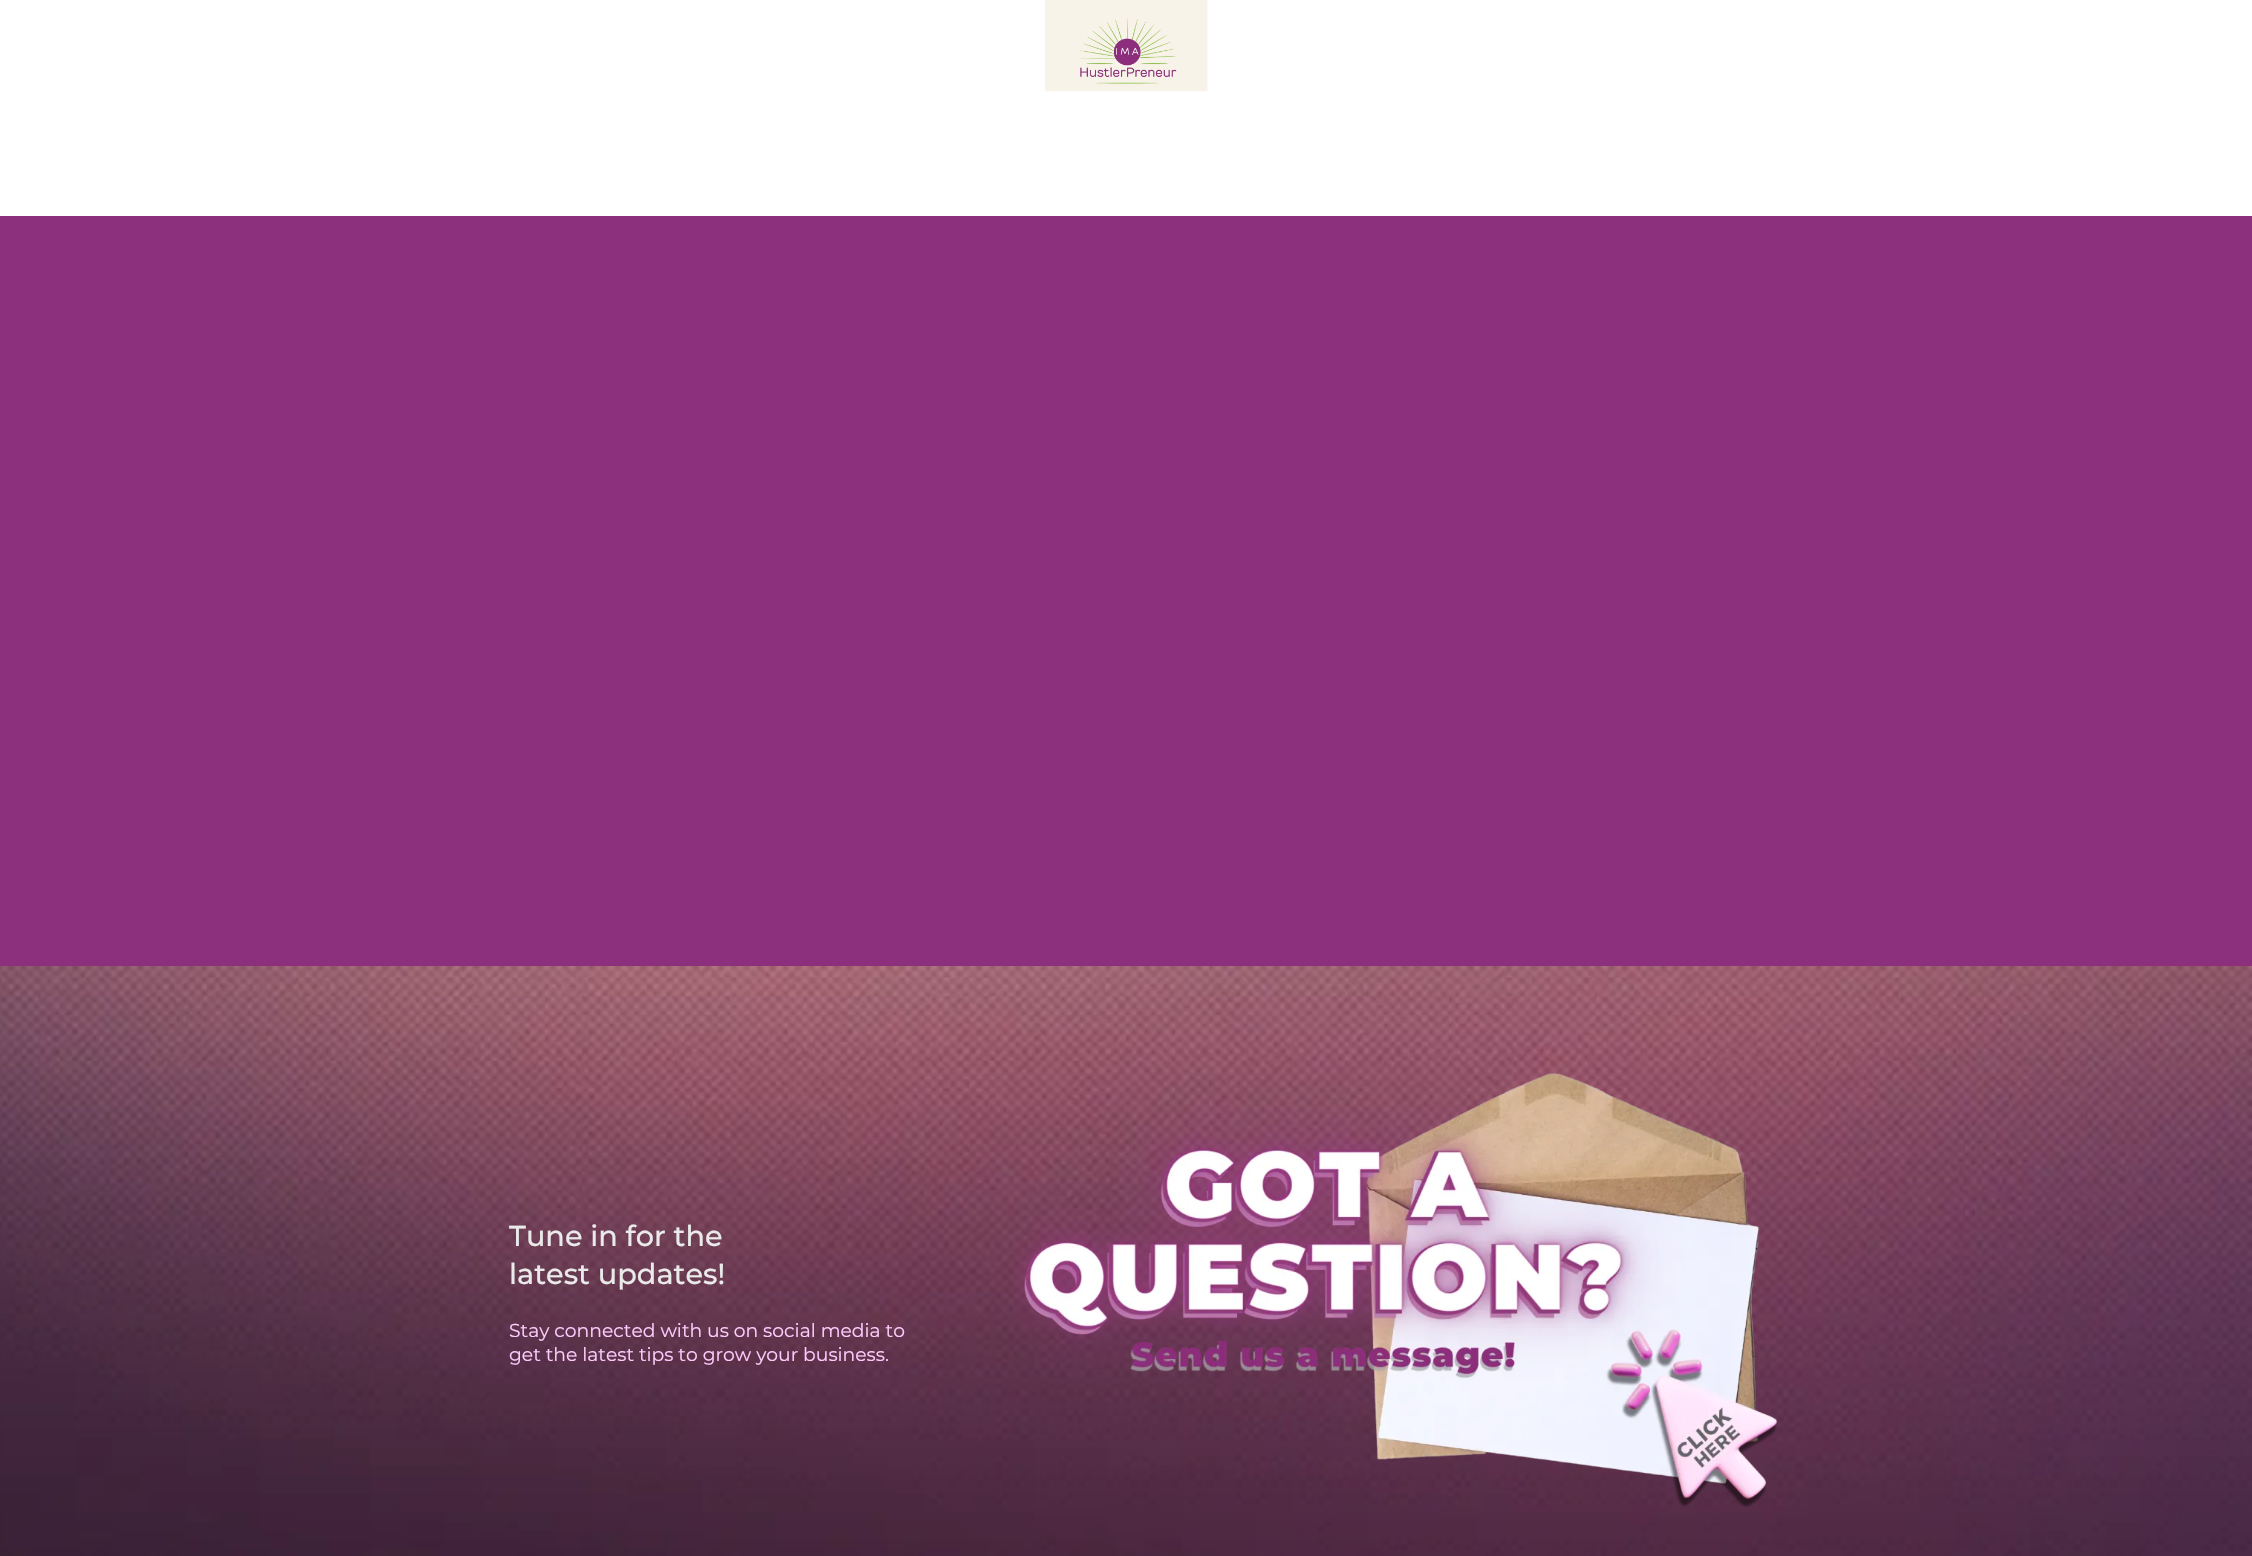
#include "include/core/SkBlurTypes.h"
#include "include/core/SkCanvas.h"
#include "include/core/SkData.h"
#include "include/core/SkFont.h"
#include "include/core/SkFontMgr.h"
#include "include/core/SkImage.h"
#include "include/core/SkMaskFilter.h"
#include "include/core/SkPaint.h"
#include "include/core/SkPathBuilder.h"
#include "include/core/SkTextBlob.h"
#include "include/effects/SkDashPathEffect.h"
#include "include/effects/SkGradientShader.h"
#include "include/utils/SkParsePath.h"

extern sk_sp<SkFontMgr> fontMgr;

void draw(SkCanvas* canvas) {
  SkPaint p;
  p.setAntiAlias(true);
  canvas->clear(SK_ColorWHITE);
  canvas->drawImageRect(SkImages::DeferredFromEncodedData(SkData::MakeFromFileName("images/1.png")), SkRect::MakeLTRB(1045, 0, 1208, 92), SkSamplingOptions());
  p.setColor(SkColorSetRGB(140, 48, 125));
  canvas->drawRect(SkRect::MakeLTRB(0, 216, 2252, 966), p);
  canvas->drawImageRect(SkImages::DeferredFromEncodedData(SkData::MakeFromFileName("images/2.png")), SkRect::MakeLTRB(0, 966, 2252, 1556), SkSamplingOptions());
  canvas->drawImageRect(SkImages::DeferredFromEncodedData(SkData::MakeFromFileName("images/3.png")), SkRect::MakeLTRB(1012, 1073, 1777, 1507), SkSamplingOptions());
  SkFont font1(fontMgr->matchFamilyStyle("Montserrat", SkFontStyle(500, SkFontStyle::kNormal_Width, SkFontStyle::kUpright_Slant)), 28.75f);
  font1.setSubpixel(true);
  p.setColor(SkColorSetRGB(234, 234, 234));
  canvas->drawString("Tune in for the", 509, 1246, font1, p);
  canvas->drawString("latest updates!", 509, 1284, font1, p);
  SkFont font2(fontMgr->matchFamilyStyle("Montserrat", SkFontStyle::Normal()), 18.75f);
  font2.setSubpixel(true);
  p.setColor(SkColorSetRGB(255, 204, 255));
  canvas->drawString("Stay connected with us on social media to", 509, 1337, font2, p);
  canvas->drawString("get the latest tips to grow your business.", 509, 1361, font2, p);
}
